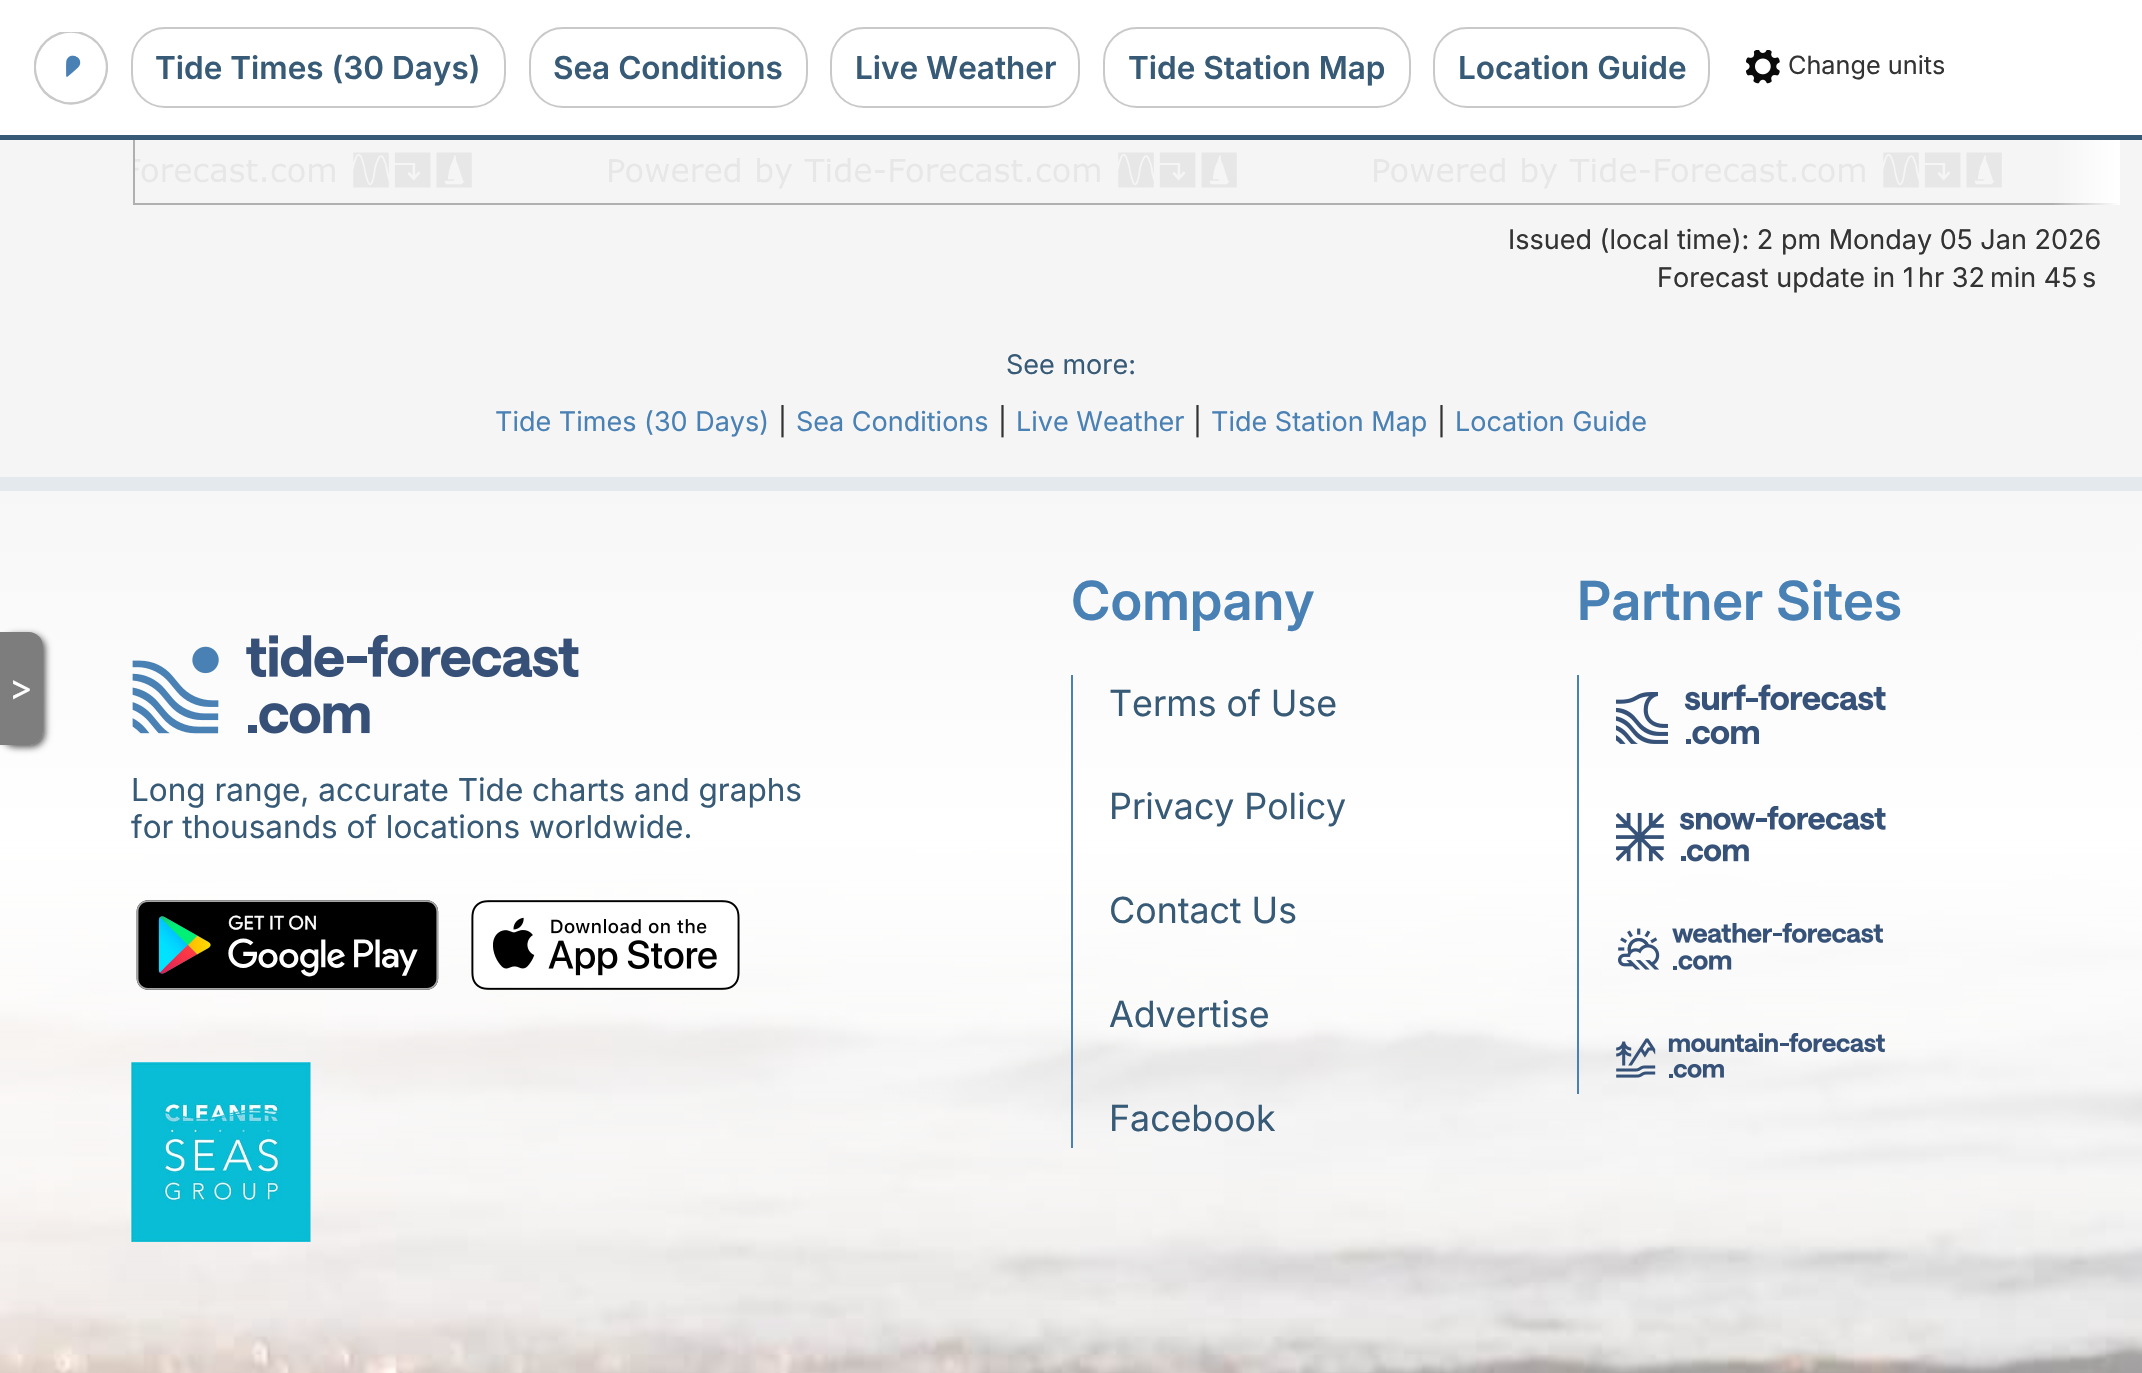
#include "include/core/SkBlurTypes.h"
#include "include/core/SkCanvas.h"
#include "include/core/SkData.h"
#include "include/core/SkFont.h"
#include "include/core/SkFontMgr.h"
#include "include/core/SkImage.h"
#include "include/core/SkMaskFilter.h"
#include "include/core/SkPaint.h"
#include "include/core/SkPathBuilder.h"
#include "include/core/SkTextBlob.h"
#include "include/effects/SkDashPathEffect.h"
#include "include/effects/SkGradientShader.h"
#include "include/utils/SkParsePath.h"

extern sk_sp<SkFontMgr> fontMgr;

void draw(SkCanvas* canvas) {
  SkPaint p;
  p.setAntiAlias(true);
  canvas->clear(SkColorSetRGB(245, 245, 245));
  p.setColor(SK_ColorWHITE);
  canvas->drawRect(SkRect::MakeLTRB(0, 0, 2142, 135), p);
  p.setColor(SkColorSetRGB(176, 176, 176));
  canvas->drawRect(SkRect::MakeLTRB(133, 137, 135, 205), p);
  p.setColor(SkColorSetRGB(55, 90, 119));
  canvas->drawRect(SkRect::MakeLTRB(0, 135, 2142, 140), p);
  canvas->save();
  canvas->clipRect(SkRect::MakeLTRB(34, 32, 108, 106));
  p.setStyle(SkPaint::kStroke_Style);
  p.setStrokeWidth(2.3f);
  p.setColor(SkColorSetRGB(201, 201, 201));
  canvas->drawPath(SkPathBuilder().moveTo(56, 100).cubicTo(38, 92, 30, 70.5f, 38, 52.5f).cubicTo(46.5f, 34.5f, 68, 26.5f, 86, 35).cubicTo(104, 43, 112, 64.5f, 103.5f, 82.5f).cubicTo(95.5f, 100.5f, 74, 108.5f, 56, 100).close().detach(), p);
  canvas->restore();
  canvas->drawImageRect(SkImages::DeferredFromEncodedData(SkData::MakeFromFileName("images/1.png")), SkRect::MakeLTRB(66, 55, 81, 77), SkSamplingOptions());
  p.setStrokeWidth(2);
  canvas->drawRoundRect(SkRect::MakeLTRB(132, 28, 505, 107), 33, 33, p);
  canvas->drawRoundRect(SkRect::MakeLTRB(530, 28, 807, 107), 33, 33, p);
  canvas->drawRoundRect(SkRect::MakeLTRB(831, 28, 1079, 107), 33, 33, p);
  canvas->drawRoundRect(SkRect::MakeLTRB(1104, 28, 1410, 107), 33, 33, p);
  canvas->drawRoundRect(SkRect::MakeLTRB(1434, 28, 1709, 107), 33, 33, p);
  canvas->drawImageRect(SkImages::DeferredFromEncodedData(SkData::MakeFromFileName("images/2.png")), SkRect::MakeLTRB(1746, 50, 1780, 84), SkSamplingOptions());
  p.setStyle(SkPaint::kFill_Style);
  p.setColor(SkColorSetRGB(176, 176, 176));
  canvas->drawRect(SkRect::MakeLTRB(135, 203, 2120, 205), p);
  canvas->drawImageRect(SkImages::DeferredFromEncodedData(SkData::MakeFromFileName("images/3.png")), SkRect::MakeLTRB(135, 152, 2002, 189), SkSamplingOptions());
  {
    const SkColor colors[] = {SK_ColorWHITE, SkColorSetARGB(0, 255, 255, 255)};
    const float stops[] = {0, 1};
    const SkPoint ends[] = {{2120, -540}, {2052, -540}};
    p.setShader(SkGradientShader::MakeLinear(ends, colors, stops, 2, SkTileMode::kClamp));
    p.setAlpha(255);
  }
  canvas->drawRect(SkRect::MakeLTRB(2054, 140, 2120, 205), p);
  canvas->drawImageRect(SkImages::DeferredFromEncodedData(SkData::MakeFromFileName("images/4.png")), SkRect::MakeLTRB(0, 491, 2142, 1373), SkSamplingOptions());
  canvas->save();
  canvas->clipPath(SkPathBuilder(SkPathFillType::kEvenOdd).moveTo(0, 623).lineTo(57, 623).lineTo(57, 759).lineTo(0, 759).close().moveTo(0, 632).lineTo(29, 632).cubicTo(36.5f, 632, 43, 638.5f, 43, 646).lineTo(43, 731).cubicTo(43, 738.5f, 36.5f, 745, 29, 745).lineTo(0, 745).close().detach(), true);
  p.setShader(nullptr);
  p.setColor(SkColorSetARGB(179, 0, 0, 0));
  p.setMaskFilter(SkMaskFilter::MakeBlur(kNormal_SkBlurStyle, 3.5f));
  canvas->drawRoundRect(SkRect::MakeLTRB(2, 635, 45, 747), 14, 14, p);
  p.setMaskFilter(nullptr);
  canvas->restore();
  p.setColor(SkColorSetARGB(128, 0, 0, 0));
  canvas->drawPath(SkPathBuilder().moveTo(0, 632).lineTo(29, 632).cubicTo(36.5f, 632, 43, 638.5f, 43, 646).lineTo(43, 731).cubicTo(43, 738.5f, 36.5f, 745, 29, 745).lineTo(0, 745).close().detach(), p);
  p.setColor(SkColorSetRGB(228, 233, 237));
  canvas->drawRect(SkRect::MakeLTRB(0, 477, 2142, 491), p);
  canvas->drawImageRect(SkImages::DeferredFromEncodedData(SkData::MakeFromFileName("images/5.png")), SkRect::MakeLTRB(132, 635, 579, 734), SkSamplingOptions());
  canvas->drawImageRect(SkImages::DeferredFromEncodedData(SkData::MakeFromFileName("images/6.png")), SkRect::MakeLTRB(136, 900, 439, 990), SkSamplingOptions());
  canvas->drawImageRect(SkImages::DeferredFromEncodedData(SkData::MakeFromFileName("images/7.png")), SkRect::MakeLTRB(471, 900, 740, 990), SkSamplingOptions());
  canvas->drawImageRect(SkImages::DeferredFromEncodedData(SkData::MakeFromFileName("images/8.png")), SkRect::MakeLTRB(130, 1062, 311, 1242), SkSamplingOptions());
  p.setColor(SkColorSetRGB(74, 129, 181));
  canvas->drawRect(SkRect::MakeLTRB(1071, 675, 1073, 1148), p);
  canvas->drawRect(SkRect::MakeLTRB(1577, 675, 1579, 1094), p);
  canvas->drawImageRect(SkImages::DeferredFromEncodedData(SkData::MakeFromFileName("images/9.png")), SkRect::MakeLTRB(1616, 684, 1886, 745), SkSamplingOptions());
  canvas->drawImageRect(SkImages::DeferredFromEncodedData(SkData::MakeFromFileName("images/10.png")), SkRect::MakeLTRB(1616, 806, 1886, 862), SkSamplingOptions());
  canvas->drawImageRect(SkImages::DeferredFromEncodedData(SkData::MakeFromFileName("images/11.png")), SkRect::MakeLTRB(1618, 923, 1883, 970), SkSamplingOptions());
  canvas->drawImageRect(SkImages::DeferredFromEncodedData(SkData::MakeFromFileName("images/12.png")), SkRect::MakeLTRB(1616, 1033, 1885, 1078), SkSamplingOptions());
  SkFont font1(fontMgr->matchFamilyStyle("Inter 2", SkFontStyle(600, SkFontStyle::kNormal_Width, SkFontStyle::kUpright_Slant)), 31.5f);
  font1.setSubpixel(true);
  p.setColor(SkColorSetRGB(55, 90, 119));
  canvas->drawString("Tide Times (30 Days)", 155, 79, font1, p);
  canvas->drawString("Sea Conditions", 553, 79, font1, p);
  canvas->drawString("Live Weather", 855, 79, font1, p);
  canvas->drawString("Tide Station Map", 1128, 79, font1, p);
  canvas->drawString("Location Guide", 1458, 79, font1, p);
  SkFont font2(fontMgr->matchFamilyStyle("Inter", SkFontStyle::Normal()), 25.25f);
  font2.setSubpixel(true);
  p.setColor(SkColorSetRGB(51, 51, 51));
  canvas->drawString("Change units", 1788, 74, font2, p);
  SkFont font3(fontMgr->matchFamilyStyle("Inter", SkFontStyle::Normal()), 27);
  font3.setSubpixel(true);
  canvas->drawString("Issued (local time): 2 pm Monday 05 Jan 2026", 1508, 249, font3, p);
  canvas->drawString("Forecast update in 1", 1657, 287, font3, p);
  canvas->drawString("hr 32", 1918, 287, font3, p);
  canvas->drawString("min 45", 1990, 287, font3, p);
  canvas->drawString("s", 2082, 287, font3, p);
  p.setColor(SkColorSetRGB(55, 90, 119));
  canvas->drawString("See more:", 1006, 374, font3, p);
  p.setColor(SkColorSetRGB(74, 129, 181));
  canvas->drawString("Tide Times (30 Days)", 495, 431, font3, p);
  p.setColor(SkColorSetRGB(51, 51, 51));
  canvas->drawString("|", 778, 431, font3, p);
  p.setColor(SkColorSetRGB(74, 129, 181));
  canvas->drawString("Sea Conditions", 796, 431, font3, p);
  p.setColor(SkColorSetRGB(51, 51, 51));
  canvas->drawString("|", 998, 431, font3, p);
  p.setColor(SkColorSetRGB(74, 129, 181));
  canvas->drawString("Live Weather", 1016, 431, font3, p);
  p.setColor(SkColorSetRGB(51, 51, 51));
  canvas->drawString("|", 1193, 431, font3, p);
  p.setColor(SkColorSetRGB(74, 129, 181));
  canvas->drawString("Tide Station Map", 1211, 431, font3, p);
  p.setColor(SkColorSetRGB(51, 51, 51));
  canvas->drawString("|", 1437, 431, font3, p);
  p.setColor(SkColorSetRGB(74, 129, 181));
  canvas->drawString("Location Guide", 1455, 431, font3, p);
  SkFont font4(fontMgr->matchFamilyStyle("Inter 2", SkFontStyle::Normal()), 36);
  font4.setSubpixel(true);
  p.setColor(SK_ColorWHITE);
  canvas->drawString(">", 9, 700, font4, p);
  SkFont font5(fontMgr->matchFamilyStyle("Inter", SkFontStyle::Normal()), 31.5f);
  font5.setSubpixel(true);
  p.setColor(SkColorSetRGB(55, 90, 119));
  canvas->drawString("Long range, accurate Tide charts and graphs", 131, 801, font5, p);
  canvas->drawString("for thousands of locations worldwide.", 131, 838, font5, p);
  SkFont font6(fontMgr->matchFamilyStyle("Inter", SkFontStyle(600, SkFontStyle::kNormal_Width, SkFontStyle::kUpright_Slant)), 54);
  font6.setSubpixel(true);
  p.setColor(SkColorSetRGB(74, 129, 181));
  canvas->drawString("Company", 1071, 620, font6, p);
  p.setColor(SkColorSetRGB(55, 90, 119));
  canvas->drawString("Terms of Use", 1109, 716, font4, p);
  canvas->drawString("Privacy Policy", 1109, 819, font4, p);
  canvas->drawString("Contact Us", 1109, 923, font4, p);
  canvas->drawString("Advertise", 1109, 1027, font4, p);
  canvas->drawString("Facebook", 1109, 1131, font4, p);
  p.setColor(SkColorSetRGB(74, 129, 181));
  canvas->drawString("Partner Sites", 1577, 620, font6, p);
}
